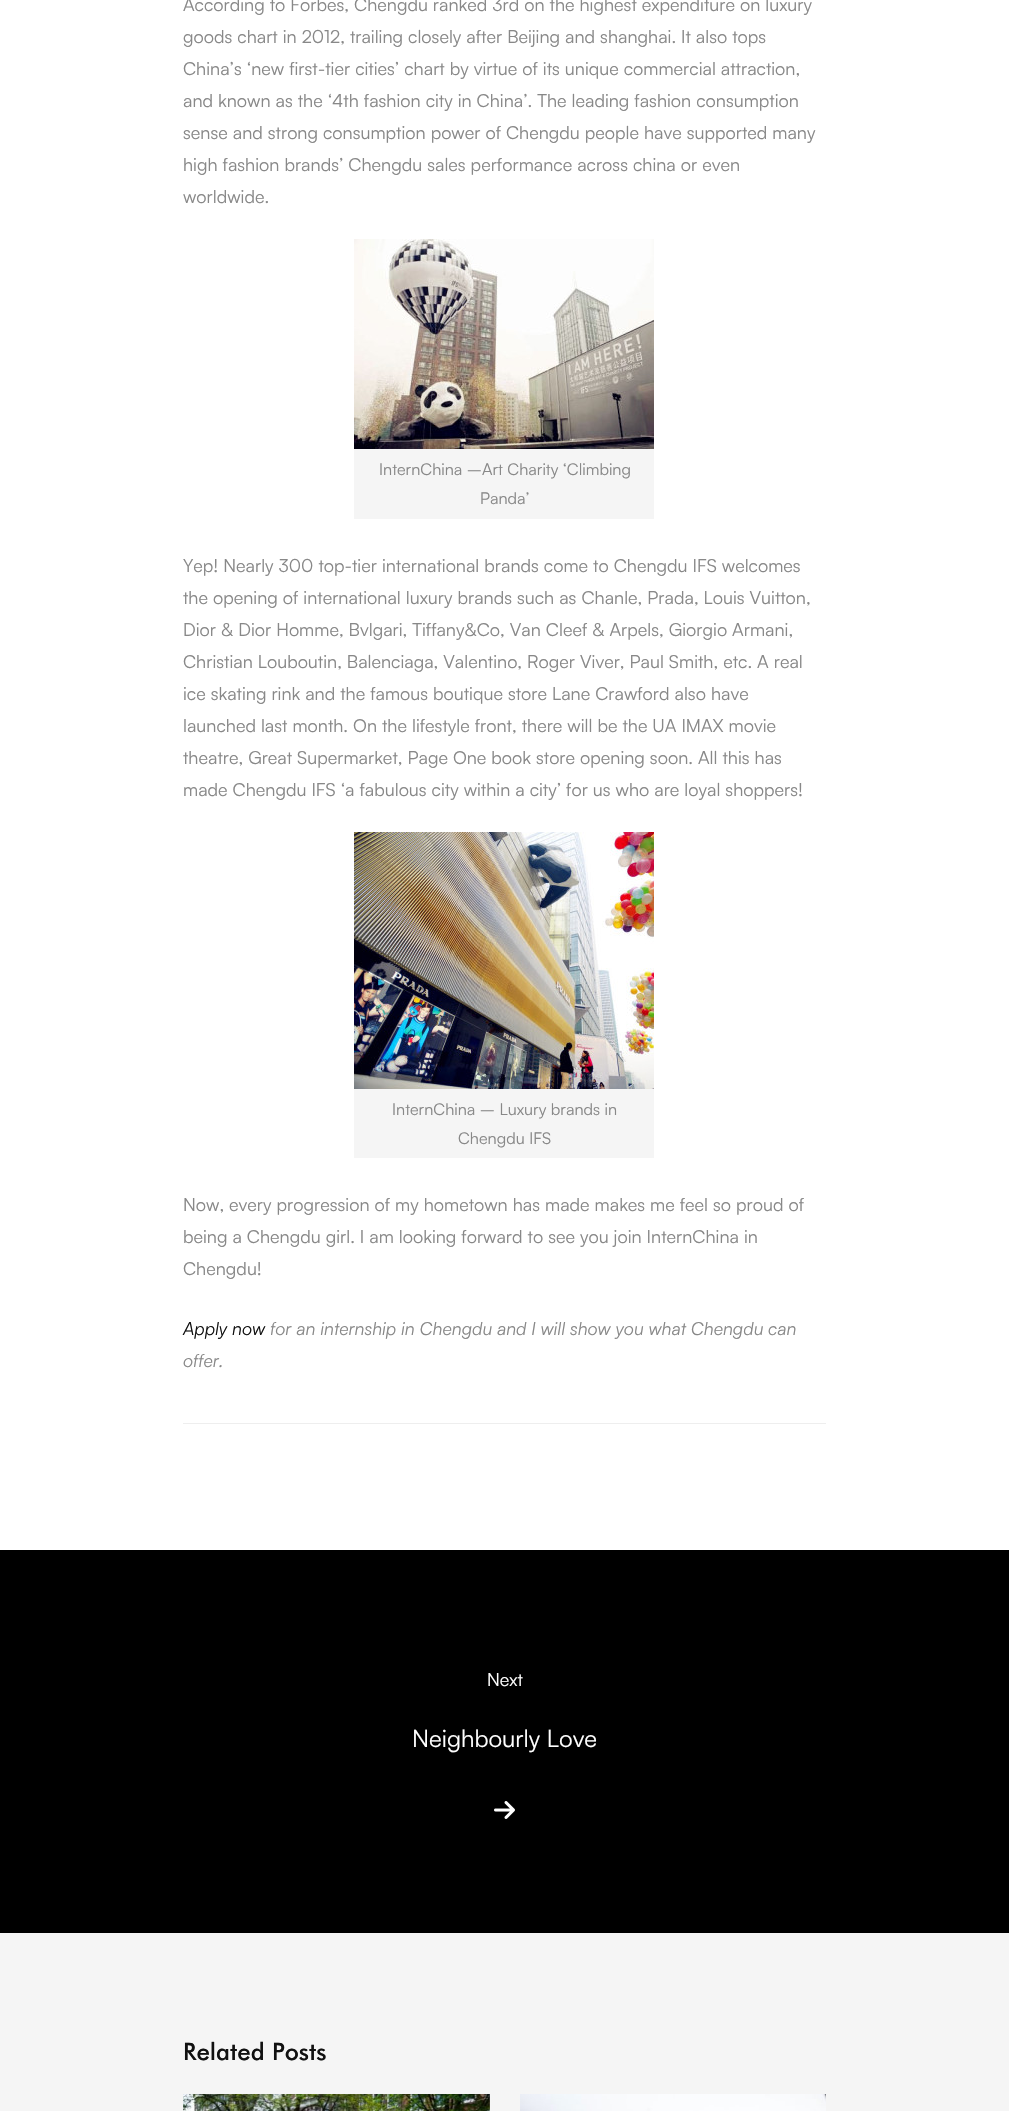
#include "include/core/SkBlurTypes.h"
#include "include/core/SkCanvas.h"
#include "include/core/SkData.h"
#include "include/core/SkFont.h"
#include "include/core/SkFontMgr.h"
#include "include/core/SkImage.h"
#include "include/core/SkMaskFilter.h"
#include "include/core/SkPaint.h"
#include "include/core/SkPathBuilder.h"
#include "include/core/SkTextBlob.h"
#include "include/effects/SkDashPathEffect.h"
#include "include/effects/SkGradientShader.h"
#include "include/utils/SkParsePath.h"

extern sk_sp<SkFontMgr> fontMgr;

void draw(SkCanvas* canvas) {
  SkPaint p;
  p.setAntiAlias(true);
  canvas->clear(SK_ColorWHITE);
  canvas->drawImageRect(SkImages::DeferredFromEncodedData(SkData::MakeFromFileName("images/1.png")), SkRect::MakeLTRB(354, 239, 654, 449), SkSamplingOptions());
  p.setColor(SkColorSetRGB(245, 245, 245));
  canvas->drawRect(SkRect::MakeLTRB(354, 449, 654, 519), p);
  canvas->drawImageRect(SkImages::DeferredFromEncodedData(SkData::MakeFromFileName("images/2.png")), SkRect::MakeLTRB(354, 832, 654, 1089), SkSamplingOptions());
  canvas->drawRect(SkRect::MakeLTRB(354, 1089, 654, 1158), p);
  p.setColor(SkColorSetRGB(238, 238, 238));
  canvas->drawRect(SkRect::MakeLTRB(183, 1423, 826, 1424), p);
  p.setColor(SK_ColorBLACK);
  canvas->drawRect(SkRect::MakeLTRB(0, 1550, 1009, 1933), p);
  canvas->drawImageRect(SkImages::DeferredFromEncodedData(SkData::MakeFromFileName("images/3.png")), SkRect::MakeLTRB(494, 1801, 515, 1819), SkSamplingOptions());
  p.setColor(SkColorSetRGB(245, 245, 245));
  canvas->drawRect(SkRect::MakeLTRB(0, 1933, 1009, 2111), p);
  canvas->drawImageRect(SkImages::DeferredFromEncodedData(SkData::MakeFromFileName("images/4.png")), SkRect::MakeLTRB(183, 2094, 490, 2111), SkSamplingOptions());
  canvas->drawImageRect(SkImages::DeferredFromEncodedData(SkData::MakeFromFileName("images/5.png")), SkRect::MakeLTRB(520, 2094, 826, 2111), SkSamplingOptions());
  SkFont font1(fontMgr->matchFamilyStyle("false", SkFontStyle::Normal()), 18);
  font1.setSubpixel(true);
  p.setColor(SkColorSetRGB(136, 136, 136));
  canvas->drawString("According to Forbes, Chengdu ranked 3rd on the highest expenditure on luxury", 183, 11, font1, p);
  canvas->drawString("goods chart in 2012, trailing closely after Beijing and shanghai. It also tops", 183, 43, font1, p);
  canvas->drawString("China’s ‘new first-tier cities’ chart by virtue of its unique commercial attraction,", 183, 75, font1, p);
  canvas->drawString("and known as the ‘4th fashion city in China’. The leading fashion consumption", 183, 107, font1, p);
  canvas->drawString("sense and strong consumption power of Chengdu people have supported many", 183, 139, font1, p);
  canvas->drawString("high fashion brands’ Chengdu sales performance across china or even", 183, 171, font1, p);
  canvas->drawString("worldwide.", 183, 203, font1, p);
  SkFont font2(fontMgr->matchFamilyStyle("false", SkFontStyle::Normal()), 16.25f);
  font2.setSubpixel(true);
  canvas->drawString("InternChina –Art Charity ‘Climbing", 379, 475, font2, p);
  canvas->drawString("Panda’", 480, 504, font2, p);
  canvas->drawString("Yep! Nearly 300 top-tier international brands come to Chengdu IFS welcomes", 183, 572, font1, p);
  canvas->drawString("the opening of international luxury brands such as Chanle, Prada, Louis Vuitton,", 183, 604, font1, p);
  canvas->drawString("Dior & Dior Homme, Bvlgari, Tiffany&Co, Van Cleef & Arpels, Giorgio Armani,", 183, 636, font1, p);
  canvas->drawString("Christian Louboutin, Balenciaga, Valentino, Roger Viver, Paul Smith, etc. A real", 183, 668, font1, p);
  canvas->drawString("ice skating rink and the famous boutique store Lane Crawford also have", 183, 700, font1, p);
  canvas->drawString("launched last month. On the lifestyle front, there will be the UA IMAX movie", 183, 732, font1, p);
  canvas->drawString("theatre, Great Supermarket, Page One book store opening soon. All this has", 183, 764, font1, p);
  canvas->drawString("made Chengdu IFS ‘a fabulous city within a city’ for us who are loyal shoppers!", 183, 796, font1, p);
  canvas->drawString("InternChina – Luxury brands in", 392, 1115, font2, p);
  canvas->drawString("Chengdu IFS", 458, 1144, font2, p);
  canvas->drawString("Now, every progression of my hometown has made makes me feel so proud of", 183, 1211, font1, p);
  canvas->drawString("being a Chengdu girl. I am looking forward to see you join InternChina in", 183, 1243, font1, p);
  canvas->drawString("Chengdu!", 183, 1275, font1, p);
  SkFont font3(fontMgr->matchFamilyStyle("false", SkFontStyle::Italic()), 18);
  font3.setSubpixel(true);
  p.setColor(SkColorSetRGB(17, 17, 17));
  canvas->drawString("Apply now", 183, 1335, font3, p);
  p.setColor(SkColorSetRGB(136, 136, 136));
  canvas->drawString("for an internship in Chengdu and I will show you what Chengdu can", 270, 1335, font3, p);
  canvas->drawString("offer.", 183, 1367, font3, p);
  p.setColor(SK_ColorWHITE);
  canvas->drawString("Next", 487, 1686, font1, p);
  SkFont font4(fontMgr->matchFamilyStyle("false", SkFontStyle::Normal()), 24);
  font4.setSubpixel(true);
  canvas->drawString("Neighbourly Love", 412, 1747, font4, p);
  SkFont font5(fontMgr->matchFamilyStyle("Futura", SkFontStyle(500, SkFontStyle::kNormal_Width, SkFontStyle::kUpright_Slant)), 24);
  font5.setSubpixel(true);
  p.setColor(SkColorSetRGB(17, 17, 17));
  canvas->drawString("Related Posts", 183, 2060, font5, p);
}
